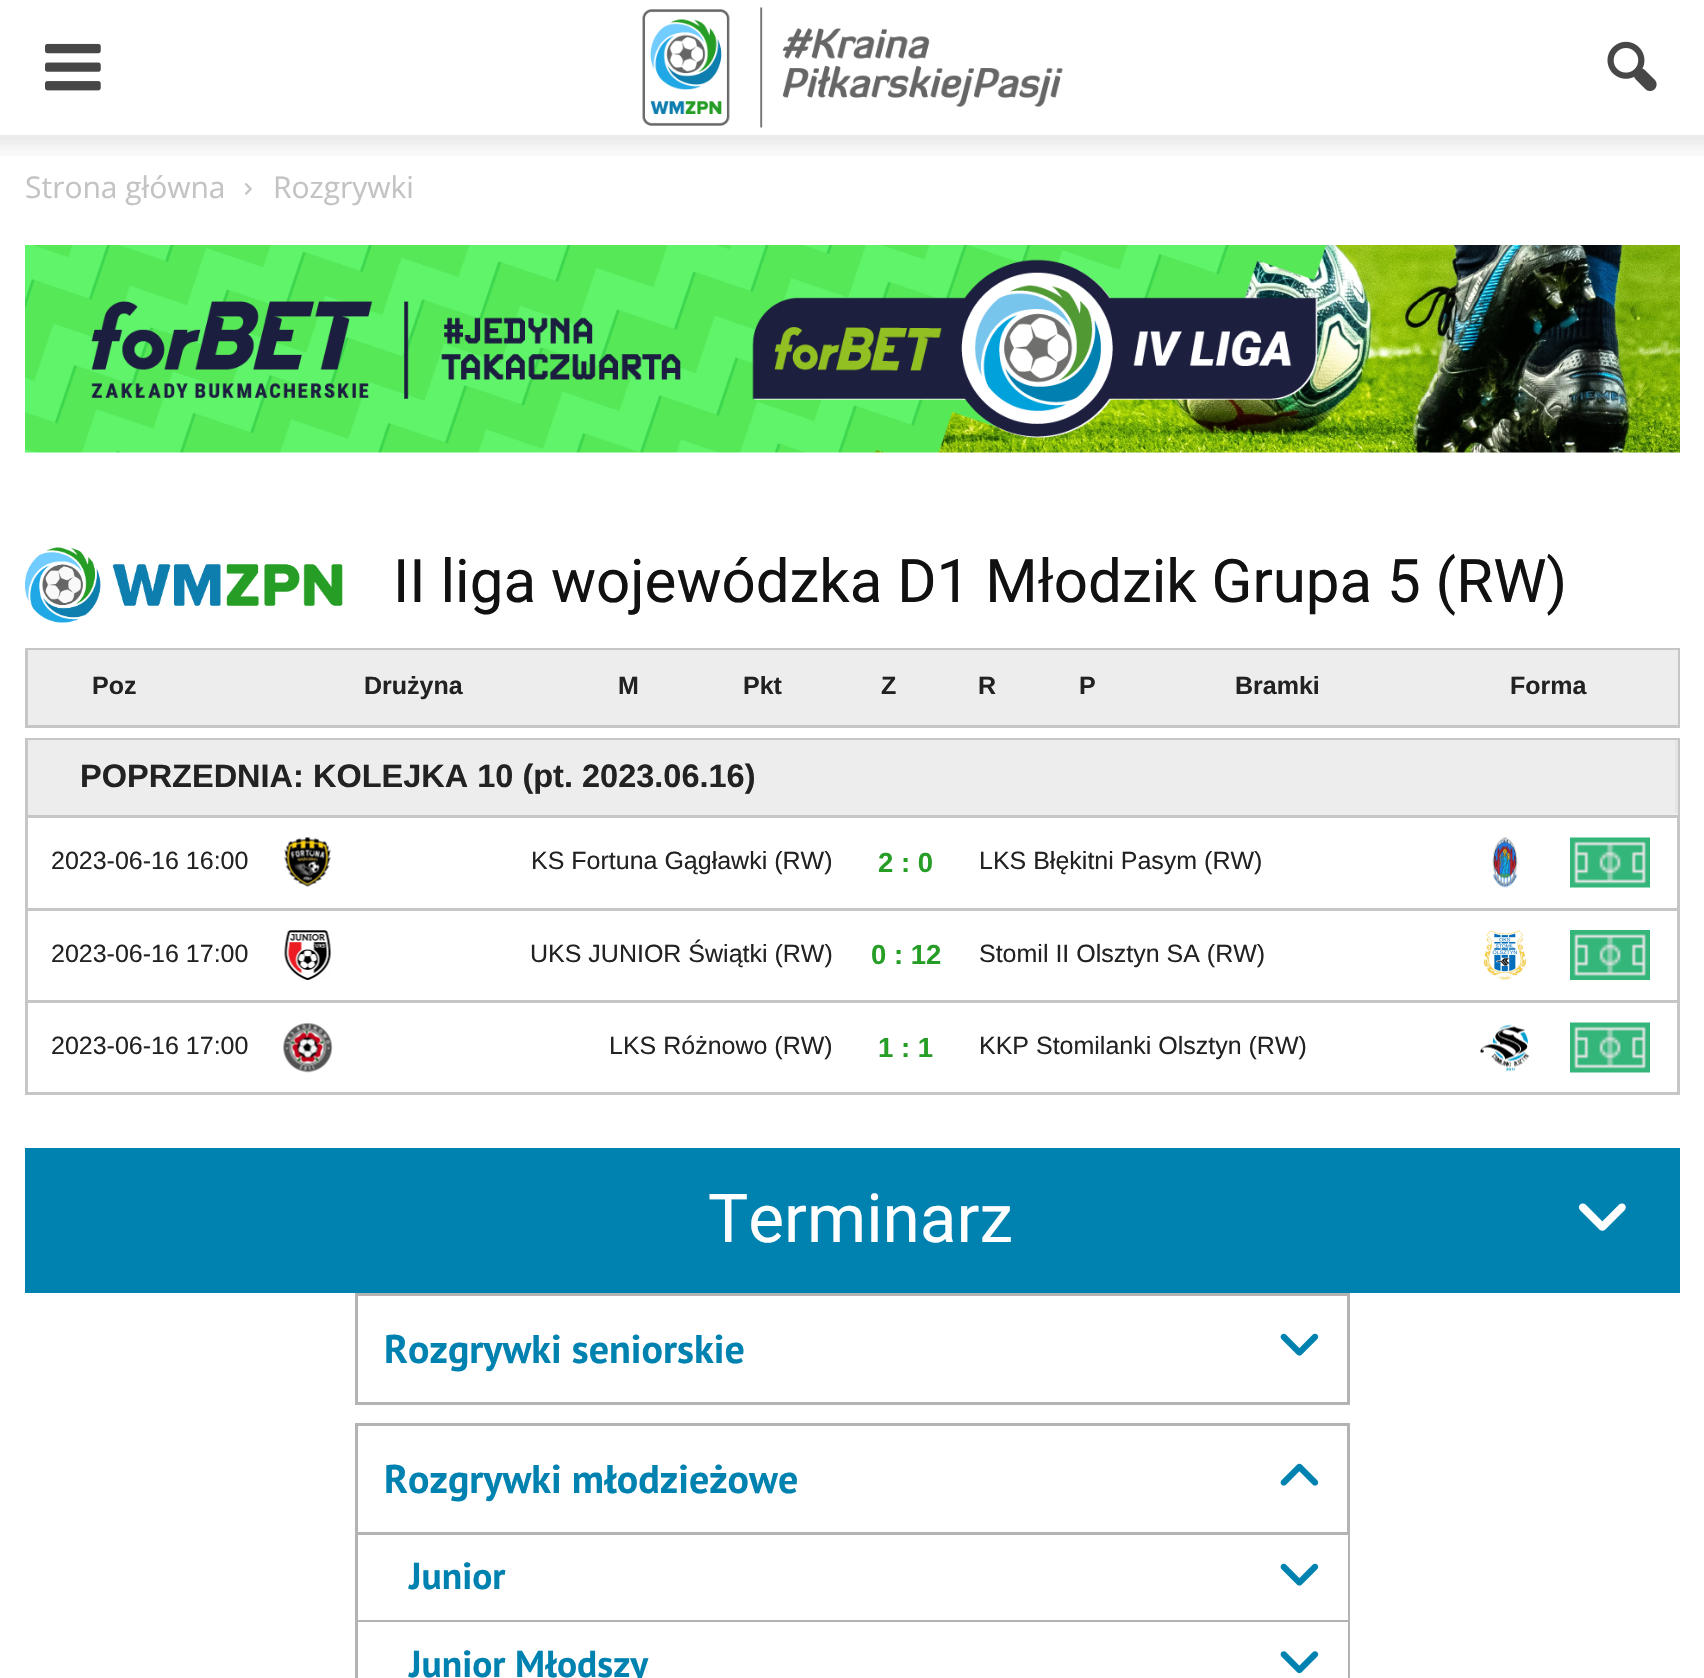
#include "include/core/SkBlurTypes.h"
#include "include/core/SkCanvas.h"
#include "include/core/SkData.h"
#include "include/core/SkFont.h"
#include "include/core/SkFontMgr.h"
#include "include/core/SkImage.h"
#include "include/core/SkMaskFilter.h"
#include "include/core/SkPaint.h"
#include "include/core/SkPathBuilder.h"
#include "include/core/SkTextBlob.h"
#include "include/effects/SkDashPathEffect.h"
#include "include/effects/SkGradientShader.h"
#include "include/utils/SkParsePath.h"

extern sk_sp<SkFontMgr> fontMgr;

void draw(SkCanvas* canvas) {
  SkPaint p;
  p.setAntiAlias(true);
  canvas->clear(SK_ColorWHITE);
  canvas->drawImageRect(SkImages::DeferredFromEncodedData(SkData::MakeFromFileName("images/1.png")), SkRect::MakeLTRB(45, 43, 101, 91), SkSamplingOptions());
  canvas->drawImageRect(SkImages::DeferredFromEncodedData(SkData::MakeFromFileName("images/2.png")), SkRect::MakeLTRB(642, 7, 1063, 128), SkSamplingOptions());
  canvas->drawImageRect(SkImages::DeferredFromEncodedData(SkData::MakeFromFileName("images/3.png")), SkRect::MakeLTRB(1607, 41, 1657, 91), SkSamplingOptions());
  canvas->drawImageRect(SkImages::DeferredFromEncodedData(SkData::MakeFromFileName("images/4.png")), SkRect::MakeLTRB(0, 135, 1704, 156), SkSamplingOptions());
  canvas->drawImageRect(SkImages::DeferredFromEncodedData(SkData::MakeFromFileName("images/5.png")), SkRect::MakeLTRB(245, 183, 252, 195), SkSamplingOptions());
  canvas->drawImageRect(SkImages::DeferredFromEncodedData(SkData::MakeFromFileName("images/6.png")), SkRect::MakeLTRB(25, 245, 1680, 453), SkSamplingOptions());
  canvas->drawImageRect(SkImages::DeferredFromEncodedData(SkData::MakeFromFileName("images/7.png")), SkRect::MakeLTRB(25, 547, 343, 623), SkSamplingOptions());
  p.setStyle(SkPaint::kStroke_Style);
  p.setStrokeWidth(3);
  p.setColor(SkColorSetRGB(198, 198, 198));
  canvas->drawRect(SkRect::MakeLTRB(26.5f, 649.5f, 1678.5f, 726.5f), p);
  p.setStyle(SkPaint::kFill_Style);
  p.setColor(SkColorSetRGB(237, 237, 237));
  canvas->drawRect(SkRect::MakeLTRB(28, 650, 1678, 725), p);
  p.setStyle(SkPaint::kStroke_Style);
  p.setColor(SkColorSetRGB(198, 198, 198));
  canvas->drawRect(SkRect::MakeLTRB(26.5f, 739.5f, 1678.5f, 1093.5f), p);
  p.setStyle(SkPaint::kFill_Style);
  p.setColor(SkColorSetRGB(237, 237, 237));
  canvas->drawRect(SkRect::MakeLTRB(28, 740, 1675, 813), p);
  p.setColor(SkColorSetRGB(229, 229, 229));
  canvas->drawRect(SkRect::MakeLTRB(1675, 740, 1678, 815), p);
  p.setColor(SkColorSetRGB(237, 237, 237));
  canvas->drawRect(SkRect::MakeLTRB(28, 813, 1678, 815), p);
  p.setColor(SkColorSetRGB(198, 198, 198));
  canvas->drawRect(SkRect::MakeLTRB(28, 815, 1678, 818), p);
  canvas->drawImageRect(SkImages::DeferredFromEncodedData(SkData::MakeFromFileName("images/8.png")), SkRect::MakeLTRB(284, 837, 331, 887), SkSamplingOptions());
  canvas->drawImageRect(SkImages::DeferredFromEncodedData(SkData::MakeFromFileName("images/9.png")), SkRect::MakeLTRB(1492, 837, 1518, 888), SkSamplingOptions());
  canvas->drawImageRect(SkImages::DeferredFromEncodedData(SkData::MakeFromFileName("images/10.png")), SkRect::MakeLTRB(1570, 837, 1650, 888), SkSamplingOptions());
  canvas->drawRect(SkRect::MakeLTRB(28, 908, 1678, 911), p);
  canvas->drawImageRect(SkImages::DeferredFromEncodedData(SkData::MakeFromFileName("images/11.png")), SkRect::MakeLTRB(284, 930, 331, 980), SkSamplingOptions());
  canvas->drawImageRect(SkImages::DeferredFromEncodedData(SkData::MakeFromFileName("images/12.png")), SkRect::MakeLTRB(1483, 930, 1526, 980), SkSamplingOptions());
  canvas->drawImageRect(SkImages::DeferredFromEncodedData(SkData::MakeFromFileName("images/13.png")), SkRect::MakeLTRB(1570, 930, 1650, 980), SkSamplingOptions());
  canvas->drawRect(SkRect::MakeLTRB(28, 1000, 1678, 1003), p);
  canvas->drawImageRect(SkImages::DeferredFromEncodedData(SkData::MakeFromFileName("images/14.png")), SkRect::MakeLTRB(283, 1022, 333, 1073), SkSamplingOptions());
  canvas->drawImageRect(SkImages::DeferredFromEncodedData(SkData::MakeFromFileName("images/15.png")), SkRect::MakeLTRB(1480, 1024, 1529, 1072), SkSamplingOptions());
  canvas->drawImageRect(SkImages::DeferredFromEncodedData(SkData::MakeFromFileName("images/16.png")), SkRect::MakeLTRB(1570, 1022, 1650, 1073), SkSamplingOptions());
  p.setColor(SkColorSetRGB(0, 130, 176));
  canvas->drawRect(SkRect::MakeLTRB(25, 1148, 1680, 1293), p);
  canvas->drawImageRect(SkImages::DeferredFromEncodedData(SkData::MakeFromFileName("images/17.png")), SkRect::MakeLTRB(1578, 1203, 1626, 1231), SkSamplingOptions());
  p.setStyle(SkPaint::kStroke_Style);
  p.setColor(SkColorSetRGB(179, 179, 179));
  canvas->drawRect(SkRect::MakeLTRB(356.5f, 1294.5f, 1348.5f, 1403.5f), p);
  canvas->drawImageRect(SkImages::DeferredFromEncodedData(SkData::MakeFromFileName("images/18.png")), SkRect::MakeLTRB(1280, 1333, 1319, 1356), SkSamplingOptions());
  canvas->drawRect(SkRect::MakeLTRB(356.5f, 1424.5f, 1348.5f, 1533.5f), p);
  canvas->drawImageRect(SkImages::DeferredFromEncodedData(SkData::MakeFromFileName("images/19.png")), SkRect::MakeLTRB(1280, 1463, 1319, 1486), SkSamplingOptions());
  p.setStyle(SkPaint::kFill_Style);
  canvas->drawPath(SkPathBuilder().moveTo(1350, 1535).lineTo(1350, 1622).lineTo(1348, 1620).lineTo(1348, 1535).close().detach(), p);
  p.setColor(SkColorSetARGB(77, 0, 0, 0));
  canvas->drawPath(SkPathBuilder().moveTo(1350, 1622).lineTo(355, 1622).lineTo(358, 1620).lineTo(1348, 1620).close().detach(), p);
  canvas->drawPath(SkPathBuilder().moveTo(355, 1622).lineTo(355, 1535).lineTo(358, 1535).lineTo(358, 1620).close().detach(), p);
  canvas->drawImageRect(SkImages::DeferredFromEncodedData(SkData::MakeFromFileName("images/18.png")), SkRect::MakeLTRB(1280, 1563, 1319, 1586), SkSamplingOptions());
  p.setColor(SkColorSetRGB(179, 179, 179));
  canvas->drawPath(SkPathBuilder().moveTo(1350, 1622).lineTo(1350, 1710).lineTo(1348, 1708).lineTo(1348, 1622).close().detach(), p);
  canvas->drawPath(SkPathBuilder().moveTo(355, 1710).lineTo(355, 1622).lineTo(358, 1622).lineTo(358, 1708).close().detach(), p);
  canvas->drawImageRect(SkImages::DeferredFromEncodedData(SkData::MakeFromFileName("images/20.png")), SkRect::MakeLTRB(1280, 1651, 1319, 1674), SkSamplingOptions());
  SkFont font1(fontMgr->matchFamilyStyle("Open Sans", SkFontStyle::Normal()), 30);
  font1.setSubpixel(true);
  p.setColor(SkColorSetRGB(195, 195, 195));
  canvas->drawString("Strona główna", 25, 198, font1, p);
  canvas->drawString("Rozgrywki", 273, 198, font1, p);
  SkFont font2(fontMgr->matchFamilyStyle("Roboto", SkFontStyle::Normal()), 60);
  font2.setSubpixel(true);
  p.setColor(SkColorSetRGB(17, 17, 17));
  canvas->drawString("II liga wojewódzka D1 Młodzik Grupa 5 (RW)", 393, 602, font2, p);
  SkFont font3(fontMgr->matchFamilyStyle("Liberation Sans", SkFontStyle::Bold()), 25);
  font3.setSubpixel(true);
  p.setColor(SkColorSetRGB(34, 34, 34));
  canvas->drawString("Poz", 92, 694, font3, p);
  canvas->drawString("Drużyna", 364, 694, font3, p);
  canvas->drawString("M", 618, 694, font3, p);
  canvas->drawString("Pkt", 743, 694, font3, p);
  canvas->drawString("Z", 881, 694, font3, p);
  canvas->drawString("R", 978, 694, font3, p);
  canvas->drawString("P", 1079, 694, font3, p);
  canvas->drawString("Bramki", 1235, 694, font3, p);
  canvas->drawString("Forma", 1510, 694, font3, p);
  SkFont font4(fontMgr->matchFamilyStyle("Liberation Sans", SkFontStyle::Bold()), 32.5f);
  font4.setSubpixel(true);
  canvas->drawString("POPRZEDNIA: KOLEJKA 10 (pt. 2023.06.16)", 80, 787, font4, p);
  SkFont font5(fontMgr->matchFamilyStyle("Liberation Sans", SkFontStyle::Normal()), 25);
  font5.setSubpixel(true);
  canvas->drawString("2023-06-16 16:00", 51, 869, font5, p);
  canvas->drawString("KS Fortuna Gągławki (RW)", 531, 869, font5, p);
  SkFont font6(fontMgr->matchFamilyStyle("Liberation Sans", SkFontStyle::Bold()), 27.5f);
  font6.setSubpixel(true);
  p.setColor(SkColorSetRGB(38, 158, 38));
  canvas->drawString("2 : 0", 878, 872, font6, p);
  p.setColor(SkColorSetRGB(34, 34, 34));
  canvas->drawString("LKS Błękitni Pasym (RW)", 979, 869, font5, p);
  canvas->drawString("2023-06-16 17:00", 51, 962, font5, p);
  canvas->drawString("UKS JUNIOR Świątki (RW)", 530, 962, font5, p);
  p.setColor(SkColorSetRGB(38, 158, 38));
  canvas->drawString("0 : 12", 871, 964, font6, p);
  p.setColor(SkColorSetRGB(34, 34, 34));
  canvas->drawString("Stomil II Olsztyn SA (RW)", 979, 962, font5, p);
  canvas->drawString("2023-06-16 17:00", 51, 1054, font5, p);
  canvas->drawString("LKS Różnowo (RW)", 609, 1054, font5, p);
  p.setColor(SkColorSetRGB(38, 158, 38));
  canvas->drawString("1 : 1", 878, 1057, font6, p);
  p.setColor(SkColorSetRGB(34, 34, 34));
  canvas->drawString("KKP Stomilanki Olsztyn (RW)", 979, 1054, font5, p);
  SkFont font7(fontMgr->matchFamilyStyle("Roboto", SkFontStyle::Normal()), 67.5f);
  font7.setSubpixel(true);
  p.setColor(SK_ColorWHITE);
  canvas->drawString("Terminarz", 708, 1242, font7, p);
  SkFont font8(fontMgr->matchFamilyStyle("PT Sans", SkFontStyle::Bold()), 40);
  font8.setSubpixel(true);
  p.setColor(SkColorSetRGB(0, 130, 176));
  canvas->drawString("Rozgrywki seniorskie", 384, 1363, font8, p);
  canvas->drawString("Rozgrywki młodzieżowe", 384, 1493, font8, p);
  SkFont font9(fontMgr->matchFamilyStyle("PT Sans", SkFontStyle::Bold()), 37.5f);
  font9.setSubpixel(true);
  canvas->drawString("Junior", 409, 1589, font9, p);
  canvas->drawString("Junior Młodszy", 409, 1677, font9, p);
}
